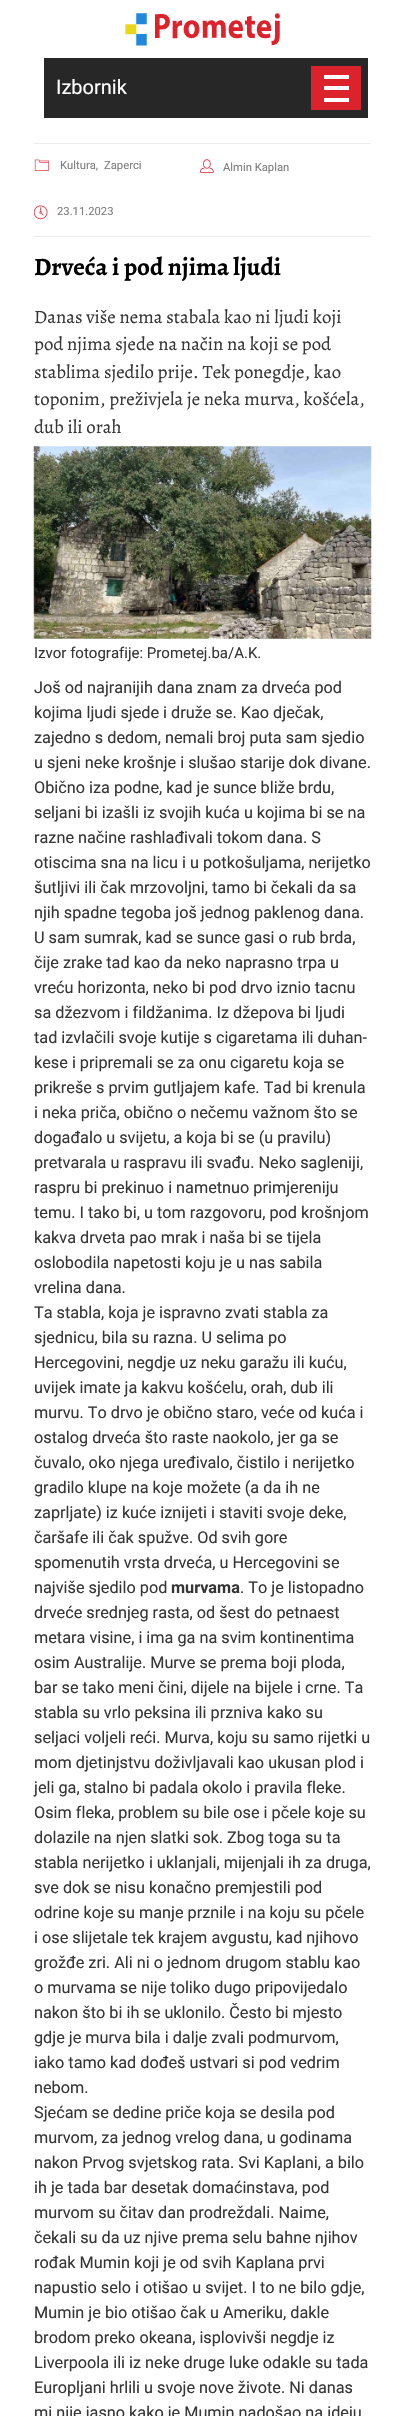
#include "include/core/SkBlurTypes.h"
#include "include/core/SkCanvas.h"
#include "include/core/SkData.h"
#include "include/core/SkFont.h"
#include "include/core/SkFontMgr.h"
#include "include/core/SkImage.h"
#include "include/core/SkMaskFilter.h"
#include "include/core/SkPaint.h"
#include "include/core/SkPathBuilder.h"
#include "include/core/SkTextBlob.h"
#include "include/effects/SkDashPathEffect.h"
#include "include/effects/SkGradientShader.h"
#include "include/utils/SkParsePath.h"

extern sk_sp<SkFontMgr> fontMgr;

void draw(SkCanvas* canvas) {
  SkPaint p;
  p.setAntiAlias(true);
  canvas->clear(SK_ColorWHITE);
  canvas->drawImageRect(SkImages::DeferredFromEncodedData(SkData::MakeFromFileName("images/1.png")), SkRect::MakeLTRB(125, 13, 280, 46), SkSamplingOptions());
  p.setColor(SkColorSetRGB(39, 39, 39));
  canvas->drawRect(SkRect::MakeLTRB(44, 58, 368, 118), p);
  p.setColor(SkColorSetRGB(220, 34, 43));
  canvas->drawRect(SkRect::MakeLTRB(311, 66, 361, 110), p);
  p.setColor(SK_ColorWHITE);
  canvas->drawRect(SkRect::MakeLTRB(324, 86, 349, 90), p);
  canvas->drawRect(SkRect::MakeLTRB(324, 75, 349, 79), p);
  canvas->drawRect(SkRect::MakeLTRB(324, 98, 349, 102), p);
  p.setColor(SkColorSetRGB(235, 235, 235));
  canvas->drawRect(SkRect::MakeLTRB(34, 143, 371, 144), p);
  canvas->drawRect(SkRect::MakeLTRB(34, 236, 371, 237), p);
  canvas->drawImageRect(SkImages::DeferredFromEncodedData(SkData::MakeFromFileName("images/2.png")), SkRect::MakeLTRB(34, 159, 49, 171), SkSamplingOptions());
  canvas->drawImageRect(SkImages::DeferredFromEncodedData(SkData::MakeFromFileName("images/3.png")), SkRect::MakeLTRB(200, 159, 214, 173), SkSamplingOptions());
  canvas->drawImageRect(SkImages::DeferredFromEncodedData(SkData::MakeFromFileName("images/4.png")), SkRect::MakeLTRB(34, 205, 48, 220), SkSamplingOptions());
  canvas->drawImageRect(SkImages::DeferredFromEncodedData(SkData::MakeFromFileName("images/5.png")), SkRect::MakeLTRB(33, 446, 372, 639), SkSamplingOptions());
  SkFont font1(fontMgr->matchFamilyStyle("Roboto", SkFontStyle::Normal()), 20);
  font1.setSubpixel(true);
  p.setColor(SK_ColorWHITE);
  canvas->drawString("Izbornik", 56, 94, font1, p);
  SkFont font2(fontMgr->matchFamilyStyle("Roboto", SkFontStyle::Normal()), 11.25f);
  font2.setSubpixel(true);
  p.setColor(SkColorSetRGB(125, 125, 125));
  canvas->drawString("Kultura,", 60, 169, font2, p);
  canvas->drawString("Zaperci", 104, 169, font2, p);
  canvas->drawString("Almin Kaplan", 223, 171, font2, p);
  canvas->drawString("23.11.2023", 57, 215, font2, p);
  SkFont font3(fontMgr->matchFamilyStyle("Alegreya", SkFontStyle::Bold()), 25);
  font3.setSubpixel(true);
  p.setColor(SkColorSetRGB(1, 1, 1));
  canvas->drawString("Drveća i pod njima ljudi", 34, 275, font3, p);
  SkFont font4(fontMgr->matchFamilyStyle("Alegreya", SkFontStyle::Normal()), 18.75f);
  font4.setSubpixel(true);
  p.setColor(SkColorSetRGB(54, 54, 54));
  canvas->drawString("Danas više nema stabala kao ni ljudi koji", 34, 323, font4, p);
  canvas->drawString("pod njima sjede na način na koji se pod", 34, 350, font4, p);
  canvas->drawString("stablima sjedilo prije. Tek ponegdje, kao", 34, 378, font4, p);
  canvas->drawString("toponim, preživjela je neka murva, košćela,", 34, 405, font4, p);
  canvas->drawString("dub ili orah", 34, 433, font4, p);
  SkFont font5(fontMgr->matchFamilyStyle("Roboto", SkFontStyle::Normal()), 15);
  font5.setSubpixel(true);
  canvas->drawString("Izvor fotografije: Prometej.ba/A.K.", 34, 658, font5, p);
  SkFont font6(fontMgr->matchFamilyStyle("Roboto", SkFontStyle::Normal()), 16.25f);
  font6.setSubpixel(true);
  canvas->drawString("Još od najranijih dana znam za drveća pod", 34, 693, font6, p);
  canvas->drawString("kojima ljudi sjede i druže se. Kao dječak,", 34, 718, font6, p);
  canvas->drawString("zajedno s dedom, nemali broj puta sam sjedio", 34, 743, font6, p);
  canvas->drawString("u sjeni neke krošnje i slušao starije dok divane.", 34, 768, font6, p);
  canvas->drawString("Obično iza podne, kad je sunce bliže brdu,", 34, 793, font6, p);
  canvas->drawString("seljani bi izašli iz svojih kuća u kojima bi se na", 34, 818, font6, p);
  canvas->drawString("razne načine rashlađivali tokom dana. S", 34, 843, font6, p);
  canvas->drawString("otiscima sna na licu i u potkošuljama, nerijetko", 34, 868, font6, p);
  canvas->drawString("šutljivi ili čak mrzovoljni, tamo bi čekali da sa", 34, 893, font6, p);
  canvas->drawString("njih spadne tegoba još jednog paklenog dana.", 34, 918, font6, p);
  canvas->drawString("U sam sumrak, kad se sunce gasi o rub brda,", 34, 943, font6, p);
  canvas->drawString("čije zrake tad kao da neko naprasno trpa u", 34, 968, font6, p);
  canvas->drawString("vreću horizonta, neko bi pod drvo iznio tacnu", 34, 993, font6, p);
  canvas->drawString("sa džezvom i fildžanima. Iz džepova bi ljudi", 34, 1018, font6, p);
  canvas->drawString("tad izvlačili svoje kutije s cigaretama ili duhan-", 34, 1043, font6, p);
  canvas->drawString("kese i pripremali se za onu cigaretu koja se", 34, 1068, font6, p);
  canvas->drawString("prikreše s prvim gutljajem kafe. Tad bi krenula", 34, 1093, font6, p);
  canvas->drawString("i neka priča, obično o nečemu važnom što se", 34, 1118, font6, p);
  canvas->drawString("događalo u svijetu, a koja bi se (u pravilu)", 34, 1143, font6, p);
  canvas->drawString("pretvarala u raspravu ili svađu. Neko sagleniji,", 34, 1168, font6, p);
  canvas->drawString("raspru bi prekinuo i nametnuo primjereniju", 34, 1193, font6, p);
  canvas->drawString("temu. I tako bi, u tom razgovoru, pod krošnjom", 34, 1218, font6, p);
  canvas->drawString("kakva drveta pao mrak i naša bi se tijela", 34, 1243, font6, p);
  canvas->drawString("oslobodila napetosti koju je u nas sabila", 34, 1268, font6, p);
  canvas->drawString("vrelina dana.", 34, 1293, font6, p);
  canvas->drawString("Ta stabla, koja je ispravno zvati stabla za", 34, 1318, font6, p);
  canvas->drawString("sjednicu, bila su razna. U selima po", 34, 1343, font6, p);
  canvas->drawString("Hercegovini, negdje uz neku garažu ili kuću,", 34, 1368, font6, p);
  canvas->drawString("uvijek imate ja kakvu košćelu, orah, dub ili", 34, 1393, font6, p);
  canvas->drawString("murvu. To drvo je obično staro, veće od kuća i", 34, 1418, font6, p);
  canvas->drawString("ostalog drveća što raste naokolo, jer ga se", 34, 1443, font6, p);
  canvas->drawString("čuvalo, oko njega uređivalo, čistilo i nerijetko", 34, 1468, font6, p);
  canvas->drawString("gradilo klupe na koje možete (a da ih ne", 34, 1493, font6, p);
  canvas->drawString("zaprljate) iz kuće iznijeti i staviti svoje deke,", 34, 1518, font6, p);
  canvas->drawString("čaršafe ili čak spužve. Od svih gore", 34, 1543, font6, p);
  canvas->drawString("spomenutih vrsta drveća, u Hercegovini se", 34, 1568, font6, p);
  canvas->drawString("najviše sjedilo pod", 34, 1593, font6, p);
  SkFont font7(fontMgr->matchFamilyStyle("Roboto", SkFontStyle::Bold()), 16.25f);
  font7.setSubpixel(true);
  canvas->drawString("murvama", 171, 1593, font7, p);
  canvas->drawString(". To je listopadno", 240, 1593, font6, p);
  canvas->drawString("drveće srednjeg rasta, od šest do petnaest", 34, 1618, font6, p);
  canvas->drawString("metara visine, i ima ga na svim kontinentima", 34, 1643, font6, p);
  canvas->drawString("osim Australije. Murve se prema boji ploda,", 34, 1668, font6, p);
  canvas->drawString("bar se tako meni čini, dijele na bijele i crne. Ta", 34, 1693, font6, p);
  canvas->drawString("stabla su vrlo peksina ili przniva kako su", 34, 1718, font6, p);
  canvas->drawString("seljaci voljeli reći. Murva, koju su samo rijetki u", 34, 1743, font6, p);
  canvas->drawString("mom djetinjstvu doživljavali kao ukusan plod i", 34, 1768, font6, p);
  canvas->drawString("jeli ga, stalno bi padala okolo i pravila fleke.", 34, 1793, font6, p);
  canvas->drawString("Osim fleka, problem su bile ose i pčele koje su", 34, 1818, font6, p);
  canvas->drawString("dolazile na njen slatki sok. Zbog toga su ta", 34, 1843, font6, p);
  canvas->drawString("stabla nerijetko i uklanjali, mijenjali ih za druga,", 34, 1868, font6, p);
  canvas->drawString("sve dok se nisu konačno premjestili pod", 34, 1893, font6, p);
  canvas->drawString("odrine koje su manje prznile i na koju su pčele", 34, 1918, font6, p);
  canvas->drawString("i ose slijetale tek krajem avgustu, kad njihovo", 34, 1943, font6, p);
  canvas->drawString("grožđe zri. Ali ni o jednom drugom stablu kao", 34, 1968, font6, p);
  canvas->drawString("o murvama se nije toliko dugo pripovijedalo", 34, 1993, font6, p);
  canvas->drawString("nakon što bi ih se uklonilo. Često bi mjesto", 34, 2018, font6, p);
  canvas->drawString("gdje je murva bila i dalje zvali podmurvom,", 34, 2043, font6, p);
  canvas->drawString("iako tamo kad dođeš ustvari si pod vedrim", 34, 2068, font6, p);
  canvas->drawString("nebom.", 34, 2093, font6, p);
  canvas->drawString("Sjećam se dedine priče koja se desila pod", 34, 2118, font6, p);
  canvas->drawString("murvom, za jednog vrelog dana, u godinama", 34, 2143, font6, p);
  canvas->drawString("nakon Prvog svjetskog rata. Svi Kaplani, a bilo", 34, 2168, font6, p);
  canvas->drawString("ih je tada bar desetak domaćinstava, pod", 34, 2193, font6, p);
  canvas->drawString("murvom su čitav dan prodreždali. Naime,", 34, 2218, font6, p);
  canvas->drawString("čekali su da uz njive prema selu bahne njihov", 34, 2243, font6, p);
  canvas->drawString("rođak Mumin koji je od svih Kaplana prvi", 34, 2268, font6, p);
  canvas->drawString("napustio selo i otišao u svijet. I to ne bilo gdje,", 34, 2293, font6, p);
  canvas->drawString("Mumin je bio otišao čak u Ameriku, dakle", 34, 2318, font6, p);
  canvas->drawString("brodom preko okeana, isplovivši negdje iz", 34, 2343, font6, p);
  canvas->drawString("Liverpoola ili iz neke druge luke odakle su tada", 34, 2368, font6, p);
  canvas->drawString("Europljani hrlili u svoje nove živote. Ni danas", 34, 2393, font6, p);
  canvas->drawString("mi nije jasno kako je Mumin nadošao na ideju", 34, 2418, font6, p);
}
